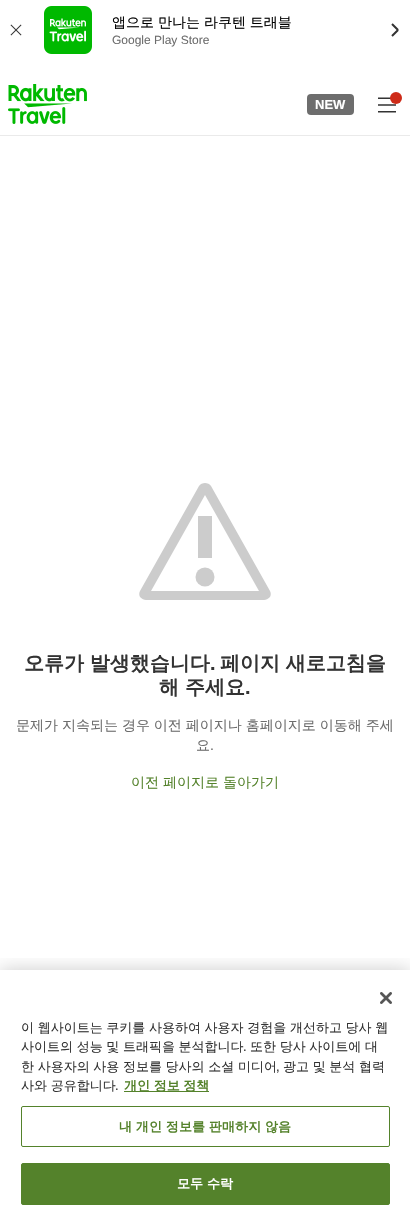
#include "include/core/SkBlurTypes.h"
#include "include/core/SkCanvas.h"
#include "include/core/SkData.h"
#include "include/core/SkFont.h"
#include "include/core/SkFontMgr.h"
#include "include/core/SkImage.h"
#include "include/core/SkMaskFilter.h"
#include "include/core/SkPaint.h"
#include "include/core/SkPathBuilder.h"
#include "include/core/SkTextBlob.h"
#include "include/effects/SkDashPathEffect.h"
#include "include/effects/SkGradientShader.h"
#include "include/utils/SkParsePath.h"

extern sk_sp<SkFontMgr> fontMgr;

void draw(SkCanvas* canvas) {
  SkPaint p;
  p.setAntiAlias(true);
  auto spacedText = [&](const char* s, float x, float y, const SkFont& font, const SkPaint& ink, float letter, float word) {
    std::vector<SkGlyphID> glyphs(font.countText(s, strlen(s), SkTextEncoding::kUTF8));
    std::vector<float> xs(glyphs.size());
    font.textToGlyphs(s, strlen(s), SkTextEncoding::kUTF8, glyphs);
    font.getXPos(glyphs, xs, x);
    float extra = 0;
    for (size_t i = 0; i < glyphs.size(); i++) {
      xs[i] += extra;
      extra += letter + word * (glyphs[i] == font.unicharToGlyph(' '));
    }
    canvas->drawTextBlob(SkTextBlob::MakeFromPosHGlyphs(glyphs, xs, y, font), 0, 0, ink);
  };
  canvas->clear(SK_ColorWHITE);
  canvas->drawImageRect(SkImages::DeferredFromEncodedData(SkData::MakeFromFileName("images/1.png")), SkRect::MakeLTRB(10, 24, 22, 36), SkSamplingOptions());
  canvas->drawImageRect(SkImages::DeferredFromEncodedData(SkData::MakeFromFileName("images/2.png")), SkRect::MakeLTRB(44, 6, 92, 54), SkSamplingOptions());
  p.setStyle(SkPaint::kStroke_Style);
  p.setStrokeWidth(2);
  p.setColor(SkColorSetRGB(51, 51, 51));
  canvas->drawPath(SkPathBuilder().moveTo(392, 24).lineTo(397.5f, 29.5f).lineTo(397.5f, 30.5f).lineTo(392, 36).detach(), p);
  p.setStyle(SkPaint::kFill_Style);
  p.setColor(SkColorSetRGB(234, 234, 234));
  canvas->drawRect(SkRect::MakeLTRB(0, 135, 410, 136), p);
  canvas->drawImageRect(SkImages::DeferredFromEncodedData(SkData::MakeFromFileName("images/3.png")), SkRect::MakeLTRB(8, 84, 87, 124), SkSamplingOptions());
  p.setColor(SkColorSetRGB(109, 109, 109));
  canvas->drawRoundRect(SkRect::MakeLTRB(307, 94, 354, 115), 4, 4, p);
  canvas->drawImageRect(SkImages::DeferredFromEncodedData(SkData::MakeFromFileName("images/4.png")), SkRect::MakeLTRB(378, 97, 396, 113), SkSamplingOptions());
  p.setColor(SkColorSetRGB(206, 43, 24));
  canvas->drawCircle(396, 98, 6, p);
  p.setColor(SkColorSetRGB(204, 204, 204));
  canvas->drawPath(SkPathBuilder(SkPathFillType::kEvenOdd).moveTo(270, 591).lineTo(211, 486).cubicTo(210, 484, 207, 483, 205, 483).cubicTo(203, 483, 200, 484, 199, 486).lineTo(140, 591).cubicTo(139, 593, 139, 595, 140, 597).cubicTo(142, 599, 144, 600, 146, 600).lineTo(264, 600).cubicTo(266, 600, 268, 599, 270, 597).cubicTo(271, 595, 271, 593, 270, 591).close().moveTo(151, 591).lineTo(205, 495).lineTo(259, 591).close().detach(), p);
  canvas->drawRect(SkRect::MakeLTRB(198, 516, 212, 558), p);
  canvas->drawCircle(205, 577, 9.5f, p);
  canvas->save();
  canvas->clipRect(SkRect::MakeLTRB(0, 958, 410, 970));
  p.setColor(SkColorSetARGB(51, 0, 0, 0));
  p.setMaskFilter(SkMaskFilter::MakeBlur(kNormal_SkBlurStyle, 9));
  canvas->drawRect(SkRect::MakeLTRB(0, 970, 410, 1221), p);
  p.setMaskFilter(nullptr);
  canvas->restore();
  canvas->drawImageRect(SkImages::DeferredFromEncodedData(SkData::MakeFromFileName("images/5.png")), SkRect::MakeLTRB(380, 992, 392, 1004), SkSamplingOptions());
  p.setColor(SkColorSetRGB(84, 130, 43));
  canvas->drawRect(SkRect::MakeLTRB(124, 1091, 209, 1092), p);
  p.setStyle(SkPaint::kStroke_Style);
  p.setStrokeWidth(1);
  canvas->drawRoundRect(SkRect::MakeLTRB(21.5f, 1106.5f, 389.5f, 1146.5f), 1.5f, 1.5f, p);
  p.setStyle(SkPaint::kFill_Style);
  canvas->drawRoundRect(SkRect::MakeLTRB(21.5f, 1163.5f, 389.5f, 1204.5f), 1.5f, 1.5f, p);
  p.setStyle(SkPaint::kStroke_Style);
  canvas->drawRoundRect(SkRect::MakeLTRB(21.5f, 1163.5f, 389.5f, 1204.5f), 1.5f, 1.5f, p);
  SkFont font1(fontMgr->matchFamilyStyle("WenQuanYi Zen Hei", SkFontStyle(500, SkFontStyle::kNormal_Width, SkFontStyle::kUpright_Slant)), 14);
  font1.setSubpixel(true);
  p.setStyle(SkPaint::kFill_Style);
  p.setColor(SK_ColorBLACK);
  spacedText("앱으로 만나는 라쿠텐 트래블", 112, 27, font1, p, 0, -0.25f);
  SkFont font2(fontMgr->matchFamilyStyle("Liberation Sans", SkFontStyle::Normal()), 12);
  font2.setSubpixel(true);
  p.setColor(SkColorSetRGB(109, 109, 109));
  canvas->drawString("Google Play Store", 112, 44, font2, p);
  SkFont font3(fontMgr->matchFamilyStyle("Liberation Sans", SkFontStyle::Bold()), 13);
  font3.setSubpixel(true);
  p.setColor(SK_ColorWHITE);
  canvas->drawString("NEW", 315, 109, font3, p);
  SkFont font4(fontMgr->matchFamilyStyle("WenQuanYi Zen Hei", SkFontStyle::Bold()), 20);
  font4.setSubpixel(true);
  p.setColor(SkColorSetRGB(51, 51, 51));
  spacedText("오류가 발생했습니다", 24, 670, font4, p, 0, -0.25f);
  SkFont font5(fontMgr->matchFamilyStyle("Liberation Sans", SkFontStyle::Bold()), 20);
  font5.setSubpixel(true);
  canvas->drawString(".", 210, 670, font5, p);
  spacedText("페이지 새로고침을", 220, 670, font4, p, 0, -0.25f);
  canvas->drawString("해 주세요", 159, 694, font4, p);
  canvas->drawString(".", 245, 694, font5, p);
  p.setColor(SkColorSetRGB(109, 109, 109));
  spacedText("문제가 지속되는 경우 이전 페이지나 홈페이지로 이동해 주세", 16, 730, font1, p, 0, -0.25f);
  canvas->drawString("요", 196, 750, font1, p);
  SkFont font6(fontMgr->matchFamilyStyle("Liberation Sans", SkFontStyle::Normal()), 14);
  font6.setSubpixel(true);
  canvas->drawString(".", 210, 750, font6, p);
  p.setColor(SkColorSetRGB(84, 130, 43));
  spacedText("이전 페이지로 돌아가기", 131, 787, font1, p, 0, -0.25f);
  SkFont font7(fontMgr->matchFamilyStyle("WenQuanYi Zen Hei", SkFontStyle(500, SkFontStyle::kNormal_Width, SkFontStyle::kUpright_Slant)), 13);
  font7.setSubpixel(true);
  p.setColor(SkColorSetRGB(51, 51, 51));
  spacedText("이 웹사이트는 쿠키를 사용하여 사용자 경험을 개선하고 당사 웹", 21, 1032, font7, p, 0, -0.25f);
  spacedText("사이트의 성능 및 트래픽을 분석합니다", 21, 1051, font7, p, 0, -0.25f);
  SkFont font8(fontMgr->matchFamilyStyle("Liberation Sans", SkFontStyle::Normal()), 13);
  font8.setSubpixel(true);
  canvas->drawString(".", 243, 1051, font8, p);
  spacedText("또한 당사 사이트에 대", 250, 1051, font7, p, 0, -0.25f);
  spacedText("한 사용자의 사용 정보를 당사의 소셜 미디어", 21, 1071, font7, p, 0, -0.25f);
  canvas->drawString(",", 276, 1071, font8, p);
  spacedText("광고 및 분석 협력", 283, 1071, font7, p, 0, -0.25f);
  spacedText("사와 공유합니다", 21, 1090, font7, p, 0, -0.25f);
  canvas->drawString(".", 115, 1090, font8, p);
  SkFont font9(fontMgr->matchFamilyStyle("WenQuanYi Zen Hei", SkFontStyle::Bold()), 13);
  font9.setSubpixel(true);
  p.setColor(SkColorSetRGB(84, 130, 43));
  spacedText("개인 정보 정책", 124, 1090, font9, p, 0, -0.25f);
  spacedText("내 개인 정보를 판매하지 않음", 119, 1131, font9, p, 0.1f, -0.25f);
  p.setColor(SK_ColorWHITE);
  spacedText("모두 수락", 177, 1188, font9, p, 0.1f, -0.25f);
}
